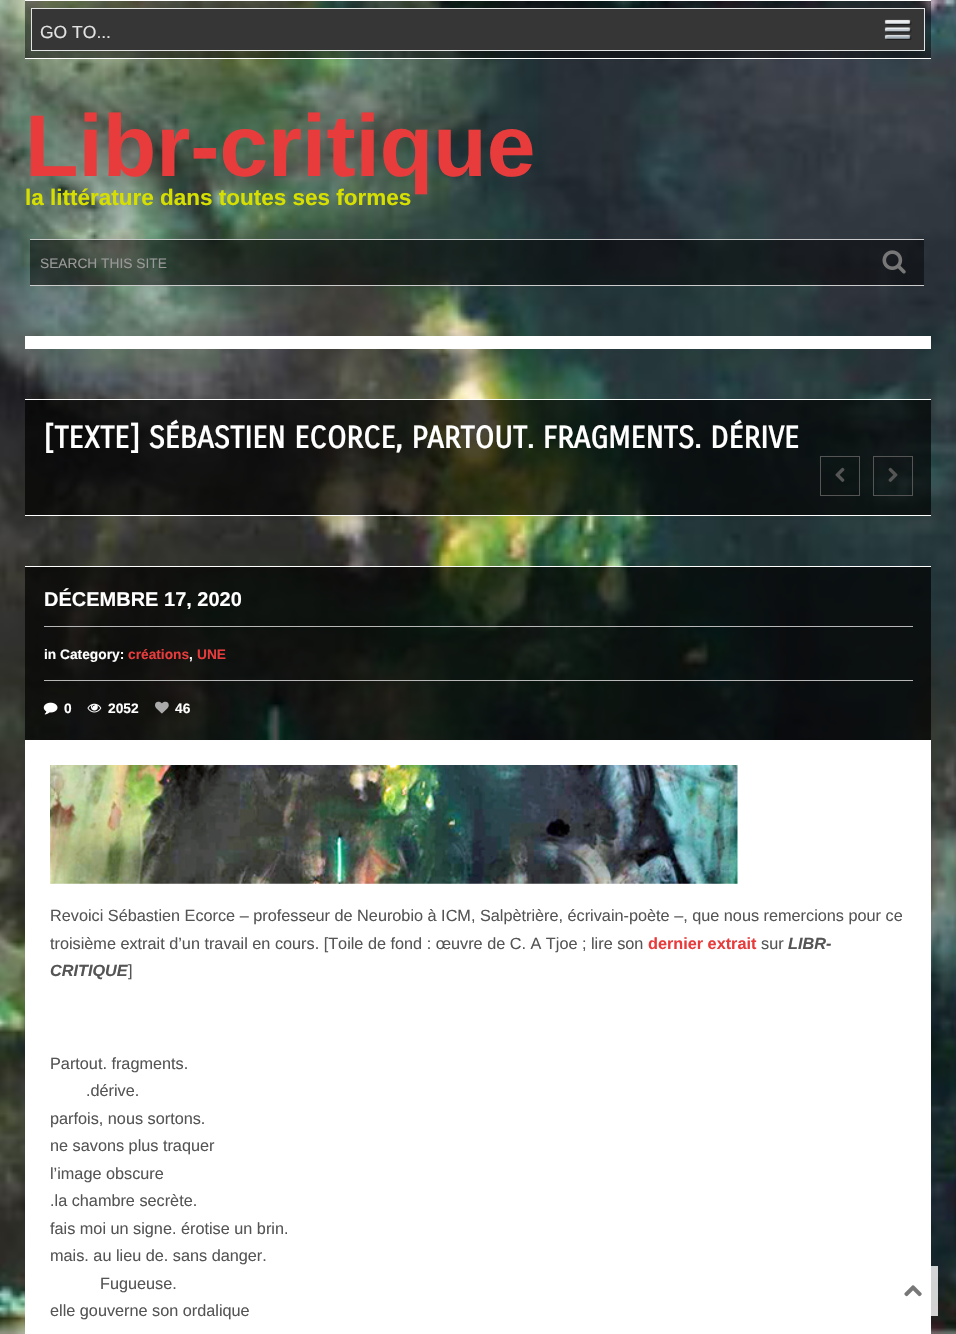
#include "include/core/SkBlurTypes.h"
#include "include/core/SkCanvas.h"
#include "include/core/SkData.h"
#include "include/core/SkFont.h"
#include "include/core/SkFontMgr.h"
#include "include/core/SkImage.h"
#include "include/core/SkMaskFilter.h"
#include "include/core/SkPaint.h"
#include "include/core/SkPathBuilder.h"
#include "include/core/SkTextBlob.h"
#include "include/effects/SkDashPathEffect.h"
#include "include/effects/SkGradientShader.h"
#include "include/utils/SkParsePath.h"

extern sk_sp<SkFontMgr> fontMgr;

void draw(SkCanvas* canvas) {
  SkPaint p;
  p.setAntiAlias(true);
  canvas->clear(SK_ColorWHITE);
  canvas->drawImageRect(SkImages::DeferredFromEncodedData(SkData::MakeFromFileName("images/1.png")), SkRect::MakeLTRB(0, 0, 956, 1334), SkSamplingOptions());
  p.setColor(SK_ColorWHITE);
  canvas->drawRect(SkRect::MakeLTRB(25, 0, 931, 1), p);
  canvas->drawRect(SkRect::MakeLTRB(25, 58, 931, 59), p);
  p.setColor(SkColorSetARGB(128, 0, 0, 0));
  canvas->drawRect(SkRect::MakeLTRB(25, 1, 931, 58), p);
  p.setColor(SkColorSetRGB(54, 54, 54));
  canvas->drawRect(SkRect::MakeLTRB(32, 9, 924, 50), p);
  canvas->drawImageRect(SkImages::DeferredFromEncodedData(SkData::MakeFromFileName("images/2.png")), SkRect::MakeLTRB(884, 19, 912, 40), SkSamplingOptions());
  p.setStyle(SkPaint::kStroke_Style);
  p.setStrokeWidth(1);
  p.setColor(SkColorSetRGB(227, 228, 228));
  canvas->drawRect(SkRect::MakeLTRB(31.5f, 8.5f, 924.5f, 50.5f), p);
  p.setStyle(SkPaint::kFill_Style);
  p.setColor(SkColorSetARGB(128, 0, 0, 0));
  canvas->drawRect(SkRect::MakeLTRB(30, 240, 924, 285), p);
  p.setColor(SkColorSetARGB(18, 0, 0, 0));
  canvas->drawRect(SkRect::MakeLTRB(30, 240, 382, 241), p);
  p.setColor(SkColorSetRGB(204, 204, 204));
  canvas->drawRect(SkRect::MakeLTRB(30, 239, 924, 240), p);
  canvas->drawRect(SkRect::MakeLTRB(30, 285, 924, 286), p);
  canvas->drawImageRect(SkImages::DeferredFromEncodedData(SkData::MakeFromFileName("images/3.png")), SkRect::MakeLTRB(882, 250, 906, 274), SkSamplingOptions());
  p.setColor(SK_ColorWHITE);
  canvas->drawRect(SkRect::MakeLTRB(25, 336, 931, 349), p);
  p.setColor(SkColorSetARGB(179, 0, 0, 0));
  canvas->drawRect(SkRect::MakeLTRB(25, 400, 931, 515), p);
  p.setColor(SK_ColorWHITE);
  canvas->drawRect(SkRect::MakeLTRB(25, 399, 931, 400), p);
  canvas->drawRect(SkRect::MakeLTRB(25, 515, 931, 516), p);
  p.setStyle(SkPaint::kStroke_Style);
  p.setColor(SkColorSetRGB(85, 85, 85));
  canvas->drawRect(SkRect::MakeLTRB(820.5f, 456.5f, 859.5f, 495.5f), p);
  canvas->drawImageRect(SkImages::DeferredFromEncodedData(SkData::MakeFromFileName("images/4.png")), SkRect::MakeLTRB(835, 467, 845, 482), SkSamplingOptions());
  canvas->drawRect(SkRect::MakeLTRB(873.5f, 456.5f, 912.5f, 495.5f), p);
  canvas->drawImageRect(SkImages::DeferredFromEncodedData(SkData::MakeFromFileName("images/5.png")), SkRect::MakeLTRB(888, 467, 898, 482), SkSamplingOptions());
  p.setStyle(SkPaint::kFill_Style);
  p.setColor(SkColorSetARGB(179, 0, 0, 0));
  canvas->drawRect(SkRect::MakeLTRB(25, 567, 931, 740), p);
  p.setColor(SK_ColorWHITE);
  canvas->drawRect(SkRect::MakeLTRB(25, 566, 931, 567), p);
  p.setColor(SkColorSetRGB(183, 183, 183));
  canvas->drawRect(SkRect::MakeLTRB(44, 626, 913, 627), p);
  canvas->drawRect(SkRect::MakeLTRB(44, 680, 913, 681), p);
  canvas->drawImageRect(SkImages::DeferredFromEncodedData(SkData::MakeFromFileName("images/6.png")), SkRect::MakeLTRB(43, 702, 58, 715), SkSamplingOptions());
  canvas->drawImageRect(SkImages::DeferredFromEncodedData(SkData::MakeFromFileName("images/7.png")), SkRect::MakeLTRB(87, 703, 102, 713), SkSamplingOptions());
  canvas->drawImageRect(SkImages::DeferredFromEncodedData(SkData::MakeFromFileName("images/8.png")), SkRect::MakeLTRB(155, 701, 169, 714), SkSamplingOptions());
  p.setColor(SK_ColorWHITE);
  canvas->drawRect(SkRect::MakeLTRB(25, 740, 931, 1334), p);
  canvas->drawImageRect(SkImages::DeferredFromEncodedData(SkData::MakeFromFileName("images/9.png")), SkRect::MakeLTRB(50, 765, 738, 884), SkSamplingOptions());
  p.setColor(SkColorSetARGB(204, 255, 255, 255));
  canvas->drawRect(SkRect::MakeLTRB(931, 1266, 938, 1316), p);
  canvas->drawImageRect(SkImages::DeferredFromEncodedData(SkData::MakeFromFileName("images/10.png")), SkRect::MakeLTRB(904, 1285, 922, 1297), SkSamplingOptions());
  SkFont font1(fontMgr->matchFamilyStyle("Liberation Sans", SkFontStyle::Normal()), 17.5f);
  font1.setSubpixel(true);
  p.setColor(SkColorSetRGB(226, 226, 226));
  canvas->drawString("GO TO...", 40, 38, font1, p);
  SkFont font2(fontMgr->matchFamilyStyle("Liberation Sans", SkFontStyle::Bold()), 87.5f);
  font2.setSubpixel(true);
  p.setColor(SkColorSetRGB(232, 60, 60));
  canvas->drawString("Libr-critique", 25, 176, font2, p);
  SkFont font3(fontMgr->matchFamilyStyle("Liberation Sans", SkFontStyle::Bold()), 22.5f);
  font3.setSubpixel(true);
  p.setColor(SkColorSetRGB(215, 223, 1));
  canvas->drawString("la littérature dans toutes ses formes", 25, 205, font3, p);
  SkFont font4(fontMgr->matchFamilyStyle("Liberation Sans", SkFontStyle::Normal()), 13.75f);
  font4.setSubpixel(true);
  p.setColor(SkColorSetRGB(153, 153, 153));
  canvas->drawString("SEARCH THIS SITE", 40, 268, font4, p);
  SkFont font5(fontMgr->matchFamilyStyle("Carrois Gothic", SkFontStyle::Bold()), 30);
  font5.setSubpixel(true);
  p.setColor(SK_ColorWHITE);
  canvas->drawString("[TEXTE] SÉBASTIEN ECORCE, PARTOUT. FRAGMENTS. DÉRIVE", 44, 448, font5, p);
  SkFont font6(fontMgr->matchFamilyStyle("Liberation Sans", SkFontStyle::Bold()), 20);
  font6.setSubpixel(true);
  canvas->drawString("DÉCEMBRE 17, 2020", 44, 606, font6, p);
  SkFont font7(fontMgr->matchFamilyStyle("Liberation Sans", SkFontStyle::Bold()), 13.75f);
  font7.setSubpixel(true);
  canvas->drawString("in Category:", 44, 659, font7, p);
  p.setColor(SkColorSetRGB(232, 60, 60));
  canvas->drawString("créations", 128, 659, font7, p);
  p.setColor(SK_ColorWHITE);
  canvas->drawString(",", 189, 659, font7, p);
  p.setColor(SkColorSetRGB(232, 60, 60));
  canvas->drawString("UNE", 197, 659, font7, p);
  p.setColor(SK_ColorWHITE);
  canvas->drawString("0", 64, 713, font7, p);
  canvas->drawString("2052", 108, 713, font7, p);
  canvas->drawString("46", 175, 713, font7, p);
  SkFont font8(fontMgr->matchFamilyStyle("Liberation Sans", SkFontStyle::Normal()), 16.25f);
  font8.setSubpixel(true);
  p.setColor(SkColorSetRGB(85, 85, 85));
  canvas->drawString("Revoici Sébastien Ecorce – professeur de Neurobio à ICM, Salpètrière, écrivain-poète –, que nous remercions pour ce", 50, 921, font8, p);
  canvas->drawString("troisième extrait d’un travail en cours. [Toile de fond : œuvre de C. A Tjoe ; lire son", 50, 949, font8, p);
  SkFont font9(fontMgr->matchFamilyStyle("Liberation Sans", SkFontStyle::Bold()), 16.25f);
  font9.setSubpixel(true);
  p.setColor(SkColorSetRGB(232, 60, 60));
  canvas->drawString("dernier extrait", 648, 949, font9, p);
  p.setColor(SkColorSetRGB(85, 85, 85));
  canvas->drawString("sur", 761, 949, font8, p);
  SkFont font10(fontMgr->matchFamilyStyle("Liberation Sans", SkFontStyle::BoldItalic()), 16.25f);
  font10.setSubpixel(true);
  canvas->drawString("LIBR-", 788, 949, font10, p);
  canvas->drawString("CRITIQUE", 50, 976, font10, p);
  canvas->drawString("]", 128, 976, font8, p);
  canvas->drawString("Partout. fragments.", 50, 1069, font8, p);
  canvas->drawString(".dérive.", 86, 1096, font8, p);
  canvas->drawString("parfois, nous sortons.", 50, 1124, font8, p);
  canvas->drawString("ne savons plus traquer", 50, 1151, font8, p);
  canvas->drawString("l’image obscure", 50, 1179, font8, p);
  canvas->drawString(".la chambre secrète.", 50, 1206, font8, p);
  canvas->drawString("fais moi un signe. érotise un brin.", 50, 1234, font8, p);
  canvas->drawString("mais. au lieu de. sans danger.", 50, 1261, font8, p);
  canvas->drawString("Fugueuse.", 100, 1289, font8, p);
  canvas->drawString("elle gouverne son ordalique", 50, 1316, font8, p);
}
